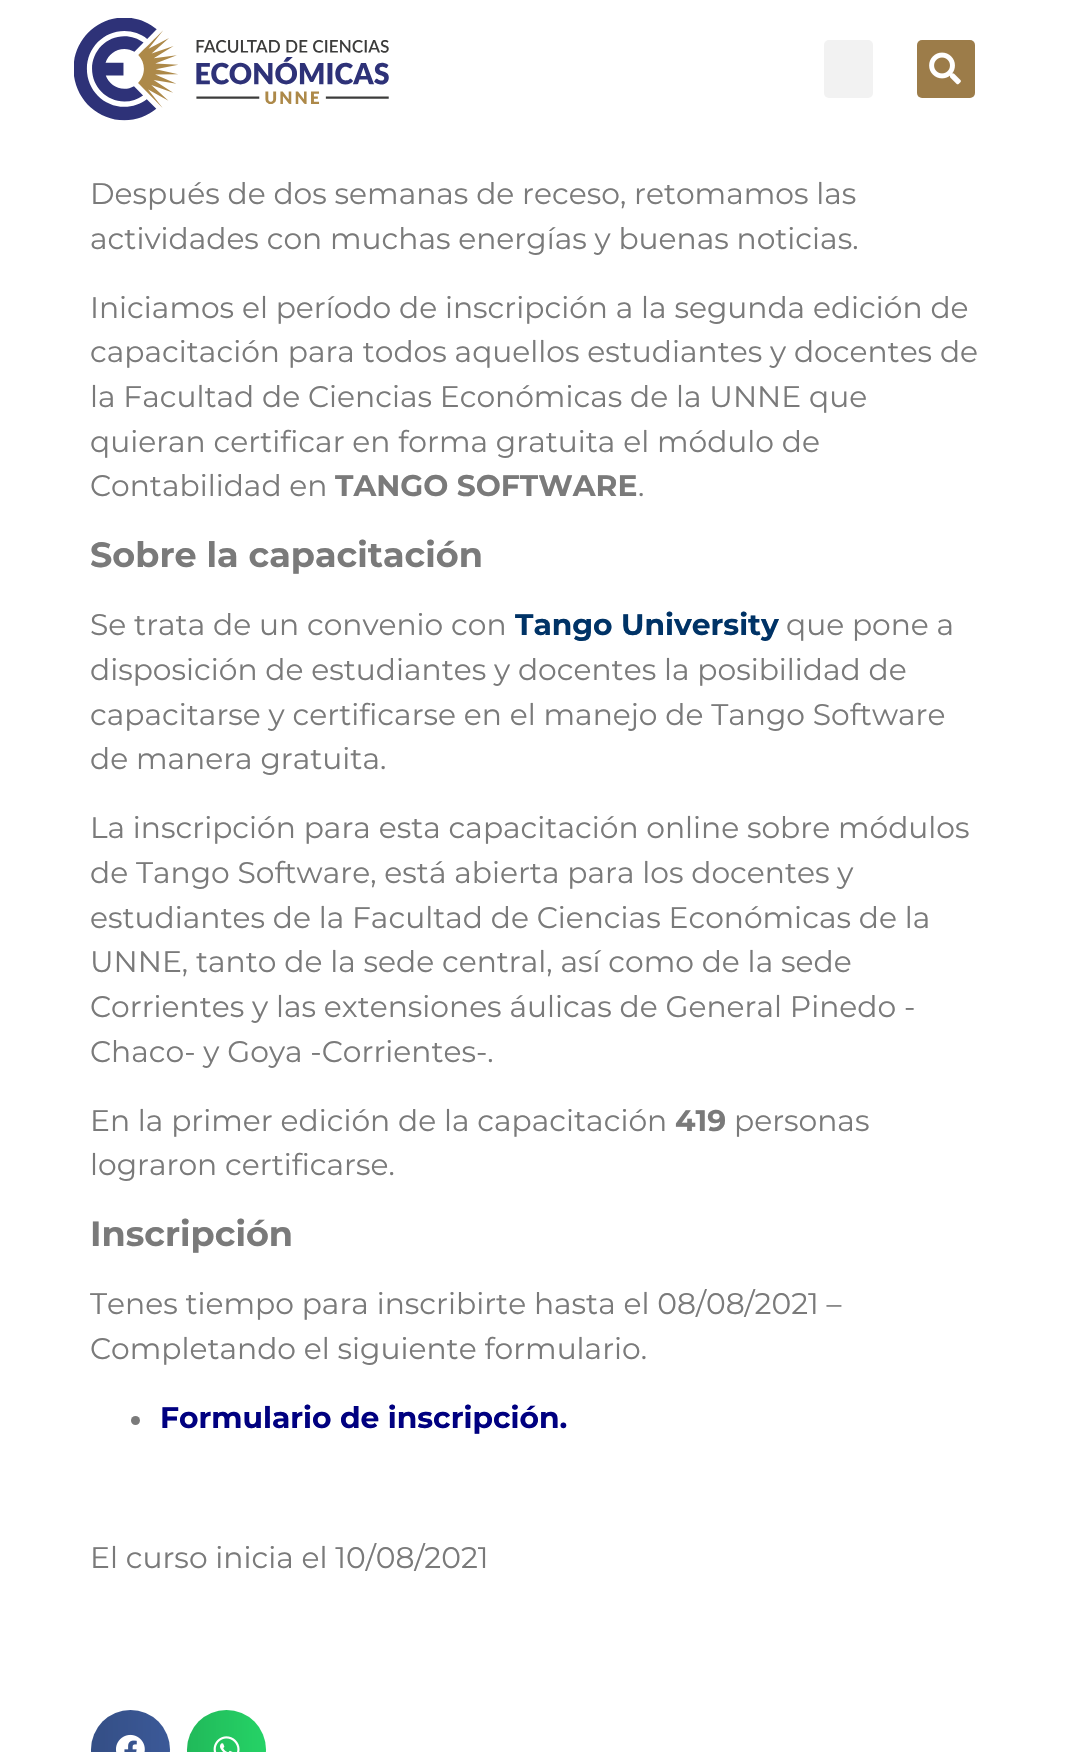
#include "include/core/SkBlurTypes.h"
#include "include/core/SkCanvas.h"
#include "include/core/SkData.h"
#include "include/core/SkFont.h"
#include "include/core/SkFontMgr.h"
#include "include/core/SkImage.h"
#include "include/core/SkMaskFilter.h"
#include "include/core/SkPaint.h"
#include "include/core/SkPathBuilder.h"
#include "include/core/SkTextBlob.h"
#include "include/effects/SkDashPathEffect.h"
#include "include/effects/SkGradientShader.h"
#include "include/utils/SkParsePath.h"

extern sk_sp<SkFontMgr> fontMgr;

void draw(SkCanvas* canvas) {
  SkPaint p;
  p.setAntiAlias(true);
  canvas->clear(SK_ColorWHITE);
  canvas->drawImageRect(SkImages::DeferredFromEncodedData(SkData::MakeFromFileName("images/1.png")), SkRect::MakeLTRB(74, 18, 389, 121), SkSamplingOptions());
  p.setColor(SkColorSetRGB(242, 242, 242));
  canvas->drawRoundRect(SkRect::MakeLTRB(824, 40, 873, 98), 5, 5, p);
  p.setColor(SkColorSetRGB(156, 124, 73));
  canvas->drawRoundRect(SkRect::MakeLTRB(917, 40, 975, 98), 5, 5, p);
  canvas->drawImageRect(SkImages::DeferredFromEncodedData(SkData::MakeFromFileName("images/2.png")), SkRect::MakeLTRB(929, 52, 961, 85), SkSamplingOptions());
  p.setColor(SkColorSetRGB(122, 122, 122));
  canvas->drawCircle(135.5f, 1420.5f, 4.5f, p);
  p.setColor(SkColorSetRGB(59, 89, 152));
  canvas->drawCircle(130.5f, 1749.5f, 39.5f, p);
  {
    const SkColor colors[] = {SkColorSetARGB(31, 0, 0, 0), SkColorSetARGB(0, 0, 0, 0)};
    const float stops[] = {0, 1};
    const SkPoint ends[] = {{91, 1749}, {170, 1749}};
    p.setShader(SkGradientShader::MakeLinear(ends, colors, stops, 2, SkTileMode::kClamp));
    p.setAlpha(255);
  }
  canvas->drawCircle(130.5f, 1749.5f, 39.5f, p);
  canvas->drawImageRect(SkImages::DeferredFromEncodedData(SkData::MakeFromFileName("images/3.png")), SkRect::MakeLTRB(116, 1734, 145, 1752), SkSamplingOptions());
  p.setShader(nullptr);
  p.setColor(SkColorSetRGB(37, 211, 102));
  canvas->drawCircle(226.5f, 1749.5f, 39.5f, p);
  {
    const SkColor colors[] = {SkColorSetARGB(31, 0, 0, 0), SkColorSetARGB(0, 0, 0, 0)};
    const float stops[] = {0, 1};
    const SkPoint ends[] = {{187, 1749}, {266, 1749}};
    p.setShader(SkGradientShader::MakeLinear(ends, colors, stops, 2, SkTileMode::kClamp));
    p.setAlpha(255);
  }
  canvas->drawCircle(226.5f, 1749.5f, 39.5f, p);
  canvas->drawImageRect(SkImages::DeferredFromEncodedData(SkData::MakeFromFileName("images/4.png")), SkRect::MakeLTRB(213, 1736, 240, 1752), SkSamplingOptions());
  SkFont font1(fontMgr->matchFamilyStyle("Montserrat", SkFontStyle::Normal()), 29.75f);
  font1.setSubpixel(true);
  p.setShader(nullptr);
  p.setColor(SkColorSetRGB(122, 122, 122));
  canvas->drawString("Después de dos semanas de receso, retomamos las", 90, 204, font1, p);
  canvas->drawString("actividades con muchas energías y buenas noticias.", 90, 249, font1, p);
  canvas->drawString("Iniciamos el período de inscripción a la segunda edición de", 90, 318, font1, p);
  canvas->drawString("capacitación para todos aquellos estudiantes y docentes de", 90, 362, font1, p);
  canvas->drawString("la Facultad de Ciencias Económicas de la UNNE que", 90, 407, font1, p);
  canvas->drawString("quieran certificar en forma gratuita el módulo de", 90, 452, font1, p);
  canvas->drawString("Contabilidad en", 90, 496, font1, p);
  SkFont font2(fontMgr->matchFamilyStyle("Montserrat", SkFontStyle::Bold()), 29.75f);
  font2.setSubpixel(true);
  canvas->drawString("TANGO SOFTWARE", 335, 496, font2, p);
  canvas->drawString(".", 638, 496, font1, p);
  SkFont font3(fontMgr->matchFamilyStyle("Montserrat", SkFontStyle::Bold()), 35);
  font3.setSubpixel(true);
  canvas->drawString("Sobre la capacitación", 90, 567, font3, p);
  canvas->drawString("Se trata de un convenio con", 90, 635, font1, p);
  p.setColor(SkColorSetRGB(0, 51, 102));
  canvas->drawString("Tango University", 515, 635, font2, p);
  p.setColor(SkColorSetRGB(122, 122, 122));
  canvas->drawString("que pone a", 786, 635, font1, p);
  canvas->drawString("disposición de estudiantes y docentes la posibilidad de", 90, 680, font1, p);
  canvas->drawString("capacitarse y certificarse en el manejo de Tango Software", 90, 725, font1, p);
  canvas->drawString("de manera gratuita.", 90, 769, font1, p);
  canvas->drawString("La inscripción para esta capacitación online sobre módulos", 90, 838, font1, p);
  canvas->drawString("de Tango Software, está abierta para los docentes y", 90, 883, font1, p);
  canvas->drawString("estudiantes de la Facultad de Ciencias Económicas de la", 90, 928, font1, p);
  canvas->drawString("UNNE, tanto de la sede central, así como de la sede", 90, 972, font1, p);
  canvas->drawString("Corrientes y las extensiones áulicas de General Pinedo -", 90, 1017, font1, p);
  canvas->drawString("Chaco- y Goya -Corrientes-.", 90, 1062, font1, p);
  canvas->drawString("En la primer edición de la capacitación", 90, 1131, font1, p);
  canvas->drawString("419", 675, 1131, font2, p);
  canvas->drawString("personas", 734, 1131, font1, p);
  canvas->drawString("lograron certificarse.", 90, 1175, font1, p);
  canvas->drawString("Inscripción", 90, 1246, font3, p);
  canvas->drawString("Tenes tiempo para inscribirte hasta el 08/08/2021 –", 90, 1314, font1, p);
  canvas->drawString("Completando el siguiente formulario.", 90, 1359, font1, p);
  p.setColor(SkColorSetRGB(0, 0, 128));
  canvas->drawString("Formulario de inscripción.", 160, 1428, font2, p);
  p.setColor(SkColorSetRGB(122, 122, 122));
  canvas->drawString("El curso inicia el 10/08/2021", 90, 1568, font1, p);
}
